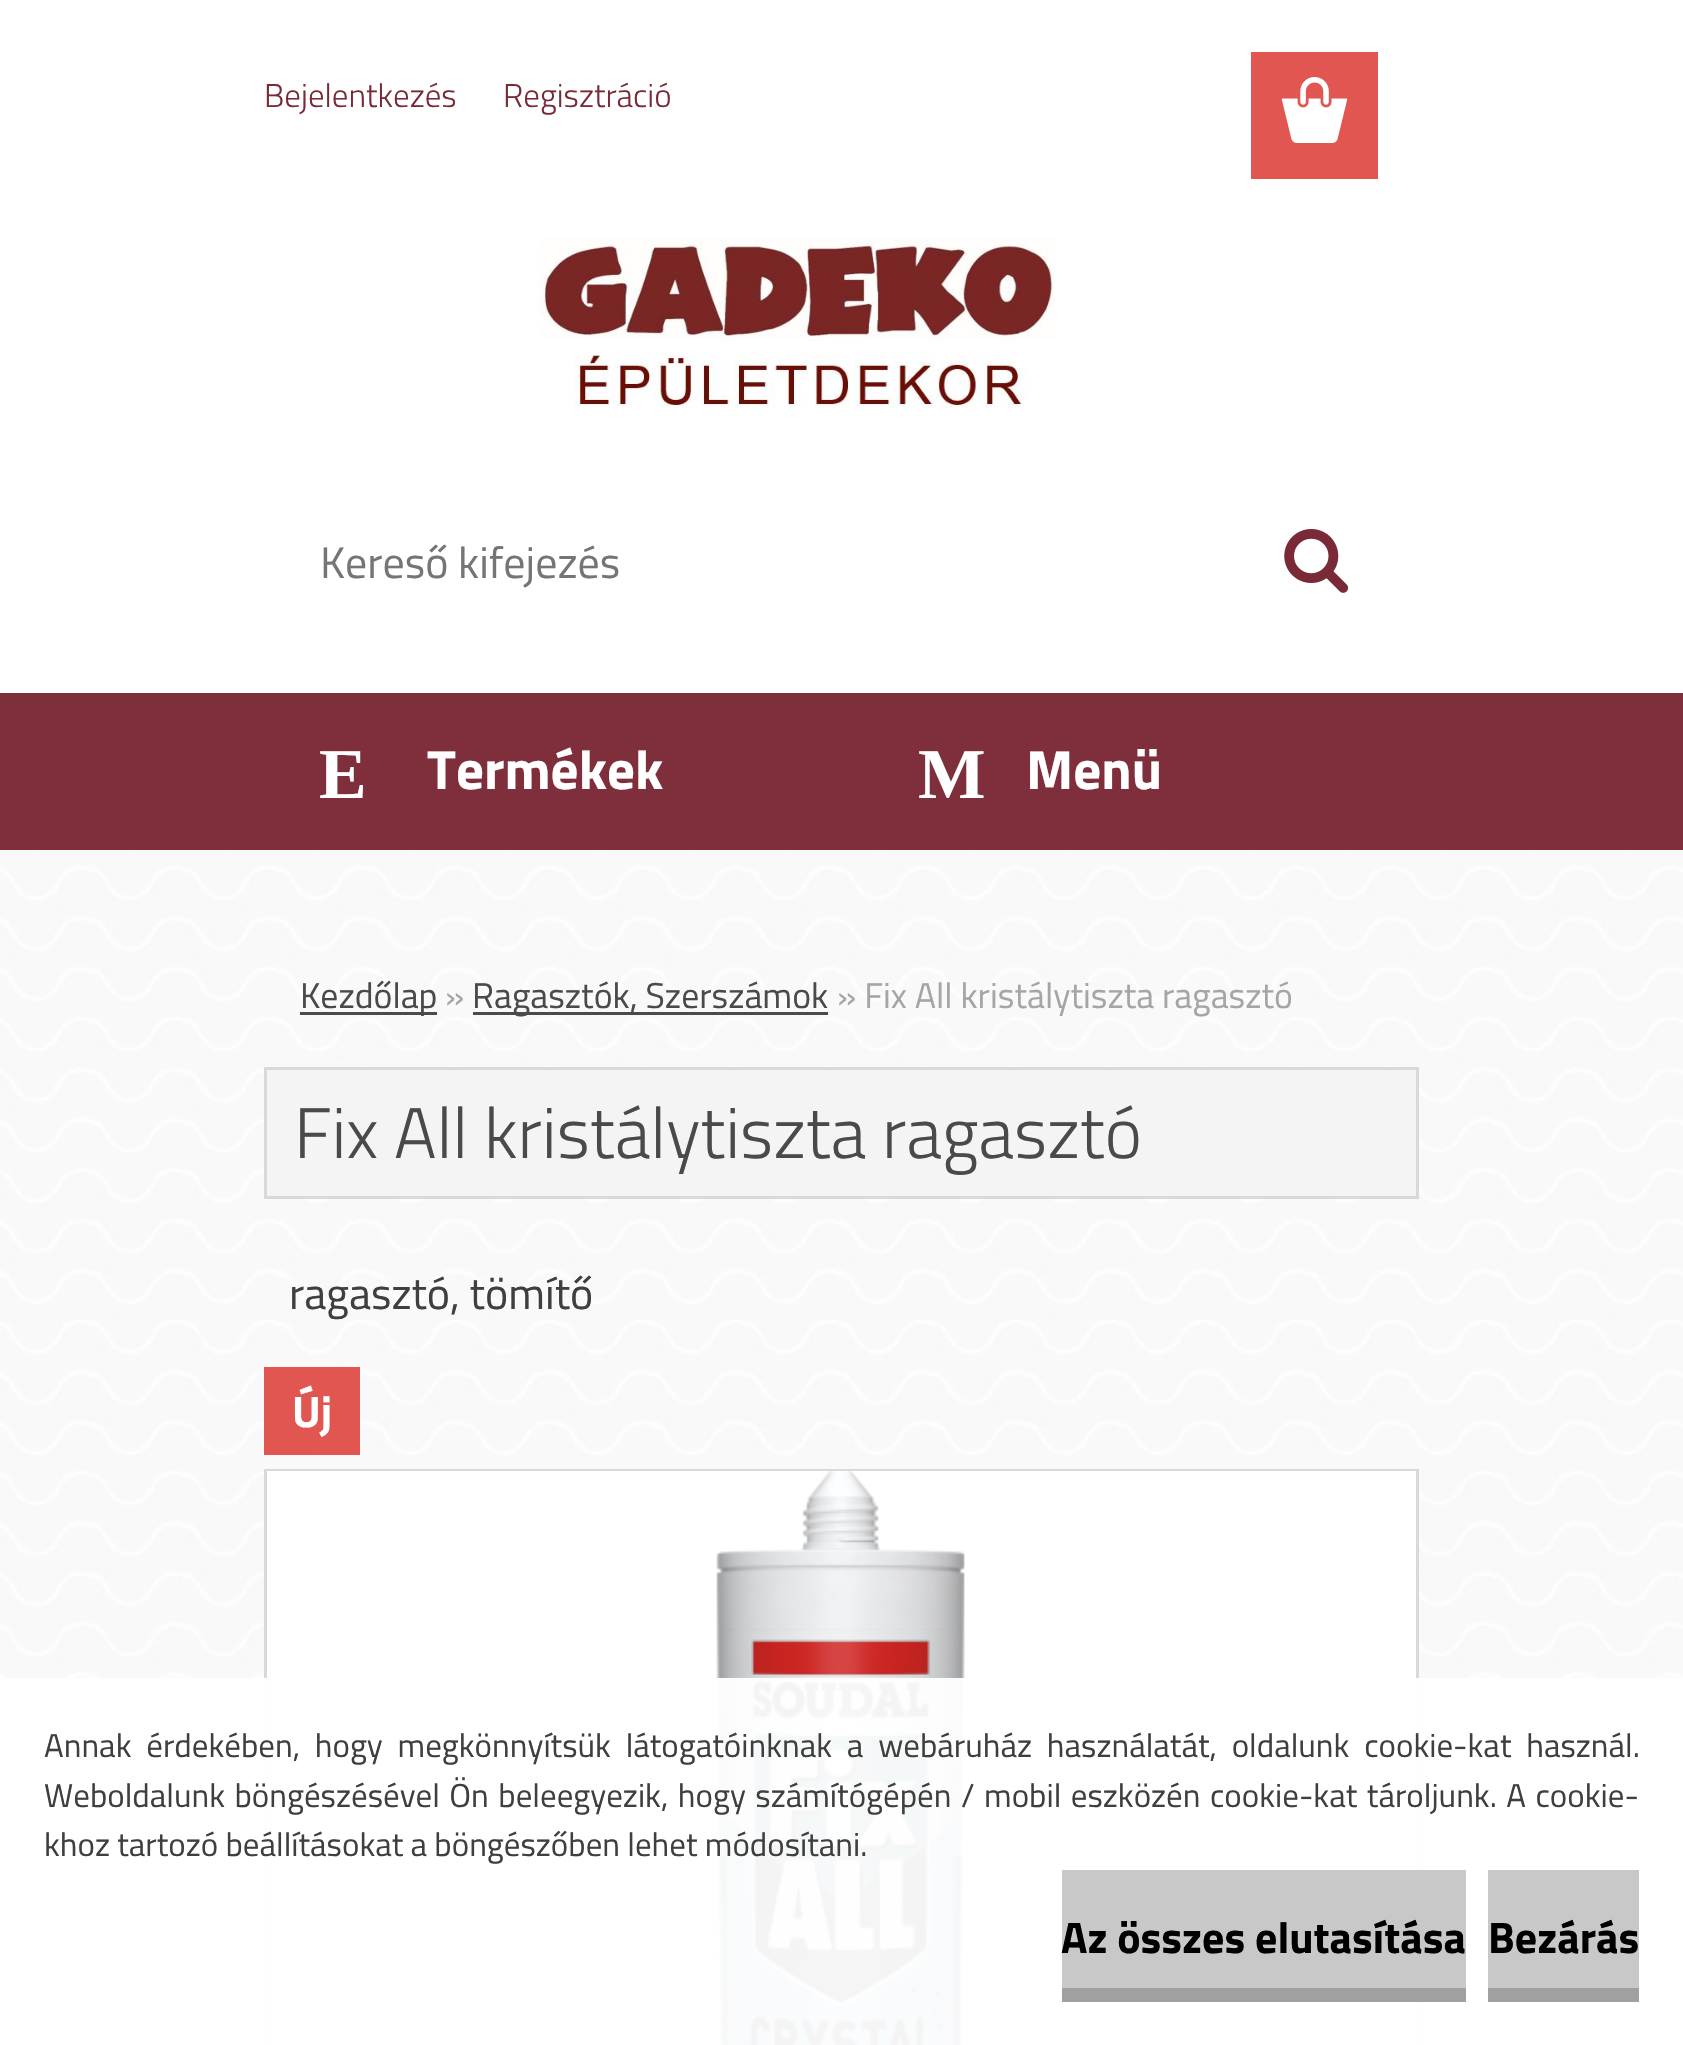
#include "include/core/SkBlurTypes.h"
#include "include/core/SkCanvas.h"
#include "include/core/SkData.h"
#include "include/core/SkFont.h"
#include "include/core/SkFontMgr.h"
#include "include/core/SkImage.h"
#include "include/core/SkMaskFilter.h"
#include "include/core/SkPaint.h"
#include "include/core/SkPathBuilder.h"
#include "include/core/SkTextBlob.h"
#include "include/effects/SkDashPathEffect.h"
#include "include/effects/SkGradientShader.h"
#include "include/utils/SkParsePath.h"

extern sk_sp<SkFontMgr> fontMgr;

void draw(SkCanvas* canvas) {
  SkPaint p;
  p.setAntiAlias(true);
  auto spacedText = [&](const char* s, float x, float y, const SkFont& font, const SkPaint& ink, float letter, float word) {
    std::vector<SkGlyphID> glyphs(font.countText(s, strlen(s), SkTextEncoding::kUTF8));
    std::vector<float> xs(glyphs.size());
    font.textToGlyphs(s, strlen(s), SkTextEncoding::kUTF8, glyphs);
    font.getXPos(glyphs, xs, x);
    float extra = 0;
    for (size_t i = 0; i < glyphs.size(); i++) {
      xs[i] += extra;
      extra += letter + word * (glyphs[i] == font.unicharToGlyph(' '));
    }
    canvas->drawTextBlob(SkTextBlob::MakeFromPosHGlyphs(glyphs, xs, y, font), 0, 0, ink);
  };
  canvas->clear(SK_ColorWHITE);
  canvas->drawImageRect(SkImages::DeferredFromEncodedData(SkData::MakeFromFileName("images/1.png")), SkRect::MakeLTRB(0, 850, 1683, 2045), SkSamplingOptions());
  p.setColor(SkColorSetRGB(225, 86, 81));
  canvas->drawRect(SkRect::MakeLTRB(1251, 52, 1378, 179), p);
  canvas->drawImageRect(SkImages::DeferredFromEncodedData(SkData::MakeFromFileName("images/2.png")), SkRect::MakeLTRB(1281, 77, 1348, 143), SkSamplingOptions());
  p.setColor(SkColorSetRGB(75, 75, 75));
  canvas->drawRect(SkRect::MakeLTRB(300, 1012, 437, 1015), p);
  canvas->drawRect(SkRect::MakeLTRB(473, 1012, 828, 1015), p);
  p.setColor(SkColorSetRGB(244, 244, 244));
  canvas->drawRect(SkRect::MakeLTRB(265.5f, 1068.5f, 1417.5f, 1197.5f), p);
  p.setStyle(SkPaint::kStroke_Style);
  p.setStrokeWidth(3);
  p.setColor(SkColorSetRGB(217, 217, 217));
  canvas->drawRect(SkRect::MakeLTRB(265.5f, 1068.5f, 1417.5f, 1197.5f), p);
  p.setStyle(SkPaint::kFill_Style);
  p.setColor(SkColorSetRGB(225, 86, 81));
  canvas->drawRect(SkRect::MakeLTRB(264, 1367, 360, 1455), p);
  p.setStyle(SkPaint::kStroke_Style);
  p.setColor(SkColorSetRGB(217, 217, 217));
  canvas->drawRect(SkRect::MakeLTRB(265.5f, 1470.5f, 1417.5f, 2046.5f), p);
  p.setStyle(SkPaint::kFill_Style);
  p.setColor(SK_ColorWHITE);
  canvas->drawRect(SkRect::MakeLTRB(267, 1471, 1416, 2045), p);
  canvas->drawImageRect(SkImages::DeferredFromEncodedData(SkData::MakeFromFileName("images/3.png")), SkRect::MakeLTRB(716, 1471, 965, 2045), SkSamplingOptions());
  p.setColor(SkColorSetRGB(127, 47, 60));
  canvas->drawRect(SkRect::MakeLTRB(0, 693, 1683, 850), p);
  canvas->drawImageRect(SkImages::DeferredFromEncodedData(SkData::MakeFromFileName("images/4.png")), SkRect::MakeLTRB(535, 237, 1055, 409), SkSamplingOptions());
  canvas->drawImageRect(SkImages::DeferredFromEncodedData(SkData::MakeFromFileName("images/5.png")), SkRect::MakeLTRB(1284, 529, 1349, 593), SkSamplingOptions());
  p.setColor(SkColorSetARGB(242, 255, 255, 255));
  canvas->drawRect(SkRect::MakeLTRB(0, 1678, 1683, 2045), p);
  p.setColor(SkColorSetRGB(200, 200, 200));
  canvas->drawRect(SkRect::MakeLTRB(1062, 1870, 1466, 1988), p);
  p.setColor(SkColorSetRGB(160, 160, 160));
  canvas->drawRect(SkRect::MakeLTRB(1062, 1988, 1466, 2002), p);
  p.setColor(SkColorSetRGB(200, 200, 200));
  canvas->drawRect(SkRect::MakeLTRB(1488, 1870, 1639, 1988), p);
  p.setColor(SkColorSetRGB(160, 160, 160));
  canvas->drawRect(SkRect::MakeLTRB(1488, 1988, 1639, 2002), p);
  SkFont font1(fontMgr->matchFamilyStyle("Titillium Web", SkFontStyle(300, SkFontStyle::kNormal_Width, SkFontStyle::kUpright_Slant)), 33);
  font1.setSubpixel(true);
  p.setColor(SkColorSetRGB(122, 42, 55));
  canvas->drawString("Bejelentkezés", 264, 107, font1, p);
  canvas->drawString("Regisztráció", 503, 107, font1, p);
  SkFont font2(fontMgr->matchFamilyStyle("Liberation Serif", SkFontStyle::Bold()), 71.5f);
  font2.setSubpixel(true);
  p.setColor(SK_ColorWHITE);
  canvas->drawString("E", 319, 798, font2, p);
  SkFont font3(fontMgr->matchFamilyStyle("Titillium Web", SkFontStyle::Bold()), 55);
  font3.setSubpixel(true);
  canvas->drawString("Termékek", 427, 789, font3, p);
  canvas->drawString("M", 918, 798, font2, p);
  canvas->drawString("Menü", 1026, 789, font3, p);
  SkFont font4(fontMgr->matchFamilyStyle("Titillium Web", SkFontStyle::Normal()), 35.75f);
  font4.setSubpixel(true);
  p.setColor(SkColorSetRGB(74, 74, 74));
  canvas->drawString("Kezdőlap", 300, 1008, font4, p);
  p.setColor(SkColorSetRGB(165, 165, 165));
  canvas->drawString("»", 445, 1008, font4, p);
  p.setColor(SkColorSetRGB(74, 74, 74));
  canvas->drawString("Ragasztók, Szerszámok", 472, 1008, font4, p);
  p.setColor(SkColorSetRGB(165, 165, 165));
  canvas->drawString("» Fix All kristálytiszta ragasztó", 837, 1008, font4, p);
  SkFont font5(fontMgr->matchFamilyStyle("Titillium Web", SkFontStyle(300, SkFontStyle::kNormal_Width, SkFontStyle::kUpright_Slant)), 71.5f);
  font5.setSubpixel(true);
  p.setColor(SkColorSetRGB(74, 74, 74));
  canvas->drawString("Fix All kristálytiszta ragasztó", 294, 1158, font5, p);
  SkFont font6(fontMgr->matchFamilyStyle("Titillium Web", SkFontStyle::Normal()), 44);
  font6.setSubpixel(true);
  p.setColor(SkColorSetRGB(63, 63, 63));
  canvas->drawString("ragasztó, tömítő", 289, 1309, font6, p);
  SkFont font7(fontMgr->matchFamilyStyle("Titillium Web", SkFontStyle::Bold()), 44);
  font7.setSubpixel(true);
  p.setColor(SK_ColorWHITE);
  canvas->drawString("Új", 292, 1427, font7, p);
  p.setColor(SkColorSetRGB(117, 117, 117));
  canvas->drawString("Kereső kifejezés", 320, 578, font6, p);
  SkFont font8(fontMgr->matchFamilyStyle("Titillium Web", SkFontStyle::Normal()), 33);
  font8.setSubpixel(true);
  p.setColor(SkColorSetRGB(63, 63, 63));
  spacedText("Annak érdekében, hogy megkönnyítsük látogatóinknak a webáruház használatát, oldalunk cookie-kat használ.", 44, 1757, font8, p, 0, 7.5f);
  spacedText("Weboldalunk böngészésével Ön beleegyezik, hogy számítógépén / mobil eszközén cookie-kat tároljunk. A cookie-", 44, 1807, font8, p, 0, 2.25f);
  canvas->drawString("khoz tartozó beállításokat a böngészőben lehet módosítani.", 44, 1856, font8, p);
  p.setColor(SK_ColorBLACK);
  canvas->drawString("Az összes elutasítása", 1061, 1953, font7, p);
  canvas->drawString("Bezárás", 1488, 1953, font7, p);
}
